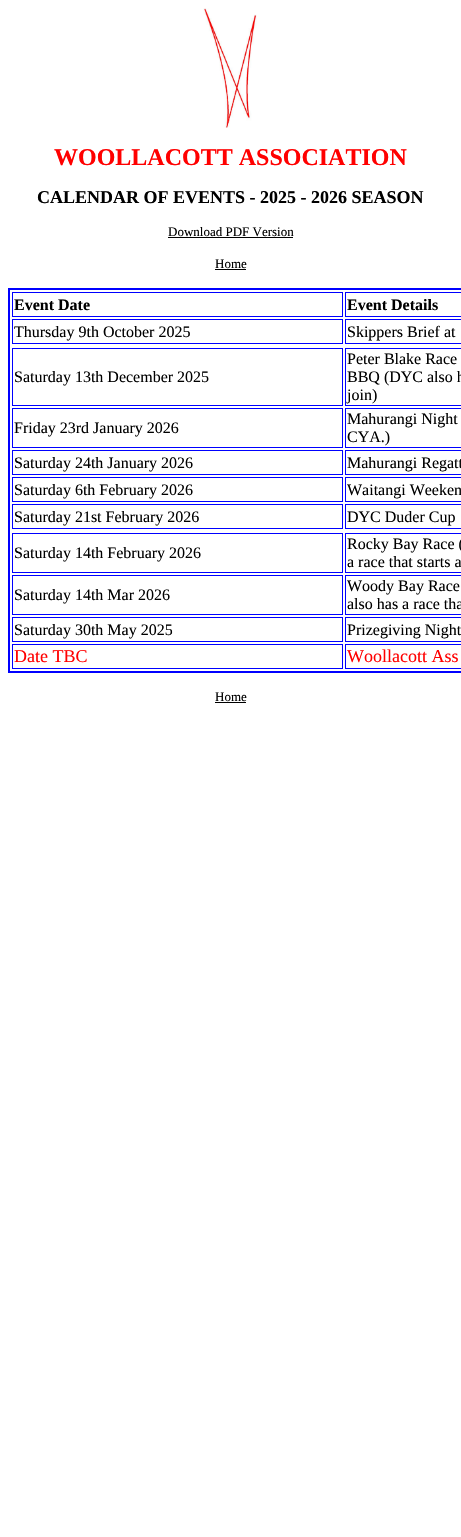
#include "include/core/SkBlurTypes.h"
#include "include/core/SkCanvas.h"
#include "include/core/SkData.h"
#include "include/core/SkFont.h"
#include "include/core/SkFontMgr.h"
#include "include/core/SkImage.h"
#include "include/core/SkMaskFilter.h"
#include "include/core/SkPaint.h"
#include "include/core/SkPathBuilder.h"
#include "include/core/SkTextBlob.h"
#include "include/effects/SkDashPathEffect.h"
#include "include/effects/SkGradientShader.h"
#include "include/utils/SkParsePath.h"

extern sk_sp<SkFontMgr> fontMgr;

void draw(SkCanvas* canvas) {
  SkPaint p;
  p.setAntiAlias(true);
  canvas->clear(SK_ColorWHITE);
  canvas->drawImageRect(SkImages::DeferredFromEncodedData(SkData::MakeFromFileName("images/1.png")), SkRect::MakeLTRB(203, 8, 257, 128), SkSamplingOptions());
  p.setColor(SK_ColorBLACK);
  canvas->drawRect(SkRect::MakeLTRB(168, 237, 293, 238), p);
  canvas->drawRect(SkRect::MakeLTRB(215, 269, 246, 270), p);
  p.setStyle(SkPaint::kStroke_Style);
  p.setStrokeWidth(2);
  p.setColor(SkColorSetRGB(0, 0, 255));
  canvas->drawRect(SkRect::MakeLTRB(9, 289, 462, 672), p);
  p.setStrokeWidth(1);
  canvas->drawRect(SkRect::MakeLTRB(12.5f, 292.5f, 342.5f, 316.5f), p);
  canvas->drawRect(SkRect::MakeLTRB(345.5f, 292.5f, 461.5f, 316.5f), p);
  canvas->drawRect(SkRect::MakeLTRB(12.5f, 319.5f, 342.5f, 343.5f), p);
  canvas->drawRect(SkRect::MakeLTRB(345.5f, 319.5f, 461.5f, 343.5f), p);
  canvas->drawRect(SkRect::MakeLTRB(12.5f, 348.5f, 342.5f, 405.5f), p);
  canvas->drawRect(SkRect::MakeLTRB(345.5f, 348.5f, 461.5f, 405.5f), p);
  canvas->drawRect(SkRect::MakeLTRB(12.5f, 408.5f, 342.5f, 447.5f), p);
  canvas->drawRect(SkRect::MakeLTRB(345.5f, 408.5f, 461.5f, 447.5f), p);
  canvas->drawRect(SkRect::MakeLTRB(12.5f, 450.5f, 342.5f, 474.5f), p);
  canvas->drawRect(SkRect::MakeLTRB(345.5f, 450.5f, 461.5f, 474.5f), p);
  canvas->drawRect(SkRect::MakeLTRB(12.5f, 477.5f, 342.5f, 501.5f), p);
  canvas->drawRect(SkRect::MakeLTRB(345.5f, 477.5f, 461.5f, 501.5f), p);
  canvas->drawRect(SkRect::MakeLTRB(12.5f, 504.5f, 342.5f, 528.5f), p);
  canvas->drawRect(SkRect::MakeLTRB(345.5f, 504.5f, 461.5f, 528.5f), p);
  canvas->drawRect(SkRect::MakeLTRB(12.5f, 533.5f, 342.5f, 572.5f), p);
  canvas->drawRect(SkRect::MakeLTRB(345.5f, 533.5f, 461.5f, 572.5f), p);
  canvas->drawRect(SkRect::MakeLTRB(12.5f, 575.5f, 342.5f, 614.5f), p);
  canvas->drawRect(SkRect::MakeLTRB(345.5f, 575.5f, 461.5f, 614.5f), p);
  canvas->drawRect(SkRect::MakeLTRB(12.5f, 617.5f, 342.5f, 641.5f), p);
  canvas->drawRect(SkRect::MakeLTRB(345.5f, 617.5f, 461.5f, 641.5f), p);
  canvas->drawRect(SkRect::MakeLTRB(12.5f, 644.5f, 342.5f, 668.5f), p);
  canvas->drawRect(SkRect::MakeLTRB(345.5f, 644.5f, 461.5f, 668.5f), p);
  p.setStyle(SkPaint::kFill_Style);
  p.setColor(SK_ColorBLACK);
  canvas->drawRect(SkRect::MakeLTRB(215, 702, 246, 703), p);
  SkFont font1(fontMgr->matchFamilyStyle("Liberation Serif", SkFontStyle::Bold()), 24);
  font1.setSubpixel(true);
  p.setColor(SkColorSetRGB(255, 0, 0));
  canvas->drawString("WOOLLACOTT ASSOCIATION", 54, 165, font1, p);
  SkFont font2(fontMgr->matchFamilyStyle("Liberation Serif", SkFontStyle::Bold()), 18);
  font2.setSubpixel(true);
  p.setColor(SK_ColorBLACK);
  canvas->drawString("CALENDAR OF EVENTS - 2025 - 2026 SEASON", 37, 203, font2, p);
  SkFont font3(fontMgr->matchFamilyStyle("Liberation Serif", SkFontStyle::Normal()), 13);
  font3.setSubpixel(true);
  canvas->drawString("Download PDF Version", 168, 236, font3, p);
  canvas->drawString("Home", 215, 268, font3, p);
  SkFont font4(fontMgr->matchFamilyStyle("Liberation Serif", SkFontStyle::Bold()), 16);
  font4.setSubpixel(true);
  canvas->drawString("Event Date", 14, 310, font4, p);
  canvas->drawString("Event Details", 347, 310, font4, p);
  SkFont font5(fontMgr->matchFamilyStyle("Liberation Serif", SkFontStyle::Normal()), 16);
  font5.setSubpixel(true);
  canvas->drawString("Thursday 9th October 2025", 14, 337, font5, p);
  canvas->drawString("Skippers Brief at", 347, 337, font5, p);
  canvas->drawString("Saturday 13th December 2025", 14, 382, font5, p);
  canvas->drawString("Peter Blake Race", 347, 364, font5, p);
  canvas->drawString("BBQ (DYC also h", 347, 382, font5, p);
  canvas->drawString("join)", 347, 400, font5, p);
  canvas->drawString("Friday 23rd January 2026", 14, 433, font5, p);
  canvas->drawString("Mahurangi Night", 347, 424, font5, p);
  canvas->drawString("CYA.)", 347, 442, font5, p);
  canvas->drawString("Saturday 24th January 2026", 14, 468, font5, p);
  canvas->drawString("Mahurangi Regatt", 347, 468, font5, p);
  canvas->drawString("Saturday 6th February 2026", 14, 495, font5, p);
  canvas->drawString("Waitangi Weeken", 347, 495, font5, p);
  canvas->drawString("Saturday 21st February 2026", 14, 522, font5, p);
  canvas->drawString("DYC Duder Cup", 347, 522, font5, p);
  canvas->drawString("Saturday 14th February 2026", 14, 558, font5, p);
  canvas->drawString("Rocky Bay Race (", 347, 549, font5, p);
  canvas->drawString("a race that starts a", 347, 567, font5, p);
  canvas->drawString("Saturday 14th Mar 2026", 14, 600, font5, p);
  canvas->drawString("Woody Bay Race", 347, 591, font5, p);
  canvas->drawString("also has a race tha", 347, 609, font5, p);
  canvas->drawString("Saturday 30th May 2025", 14, 635, font5, p);
  canvas->drawString("Prizegiving Night", 347, 635, font5, p);
  SkFont font6(fontMgr->matchFamilyStyle("Liberation Serif", SkFontStyle::Normal()), 18);
  font6.setSubpixel(true);
  p.setColor(SkColorSetRGB(255, 0, 0));
  canvas->drawString("Date TBC", 14, 662, font6, p);
  canvas->drawString("Woollacott Ass", 347, 662, font6, p);
  p.setColor(SK_ColorBLACK);
  canvas->drawString("Home", 215, 701, font3, p);
}
